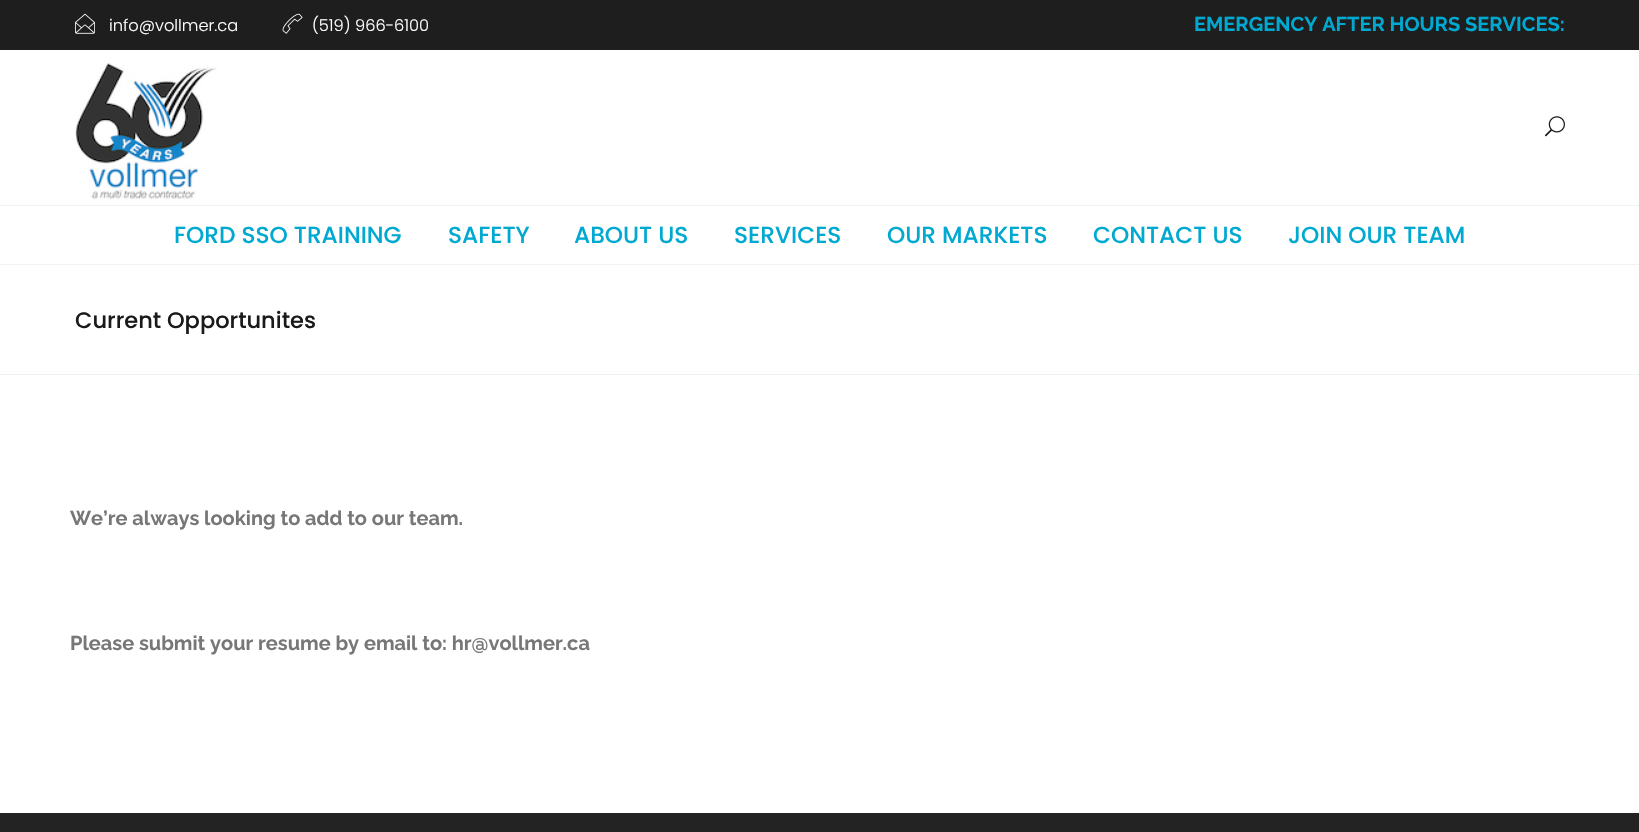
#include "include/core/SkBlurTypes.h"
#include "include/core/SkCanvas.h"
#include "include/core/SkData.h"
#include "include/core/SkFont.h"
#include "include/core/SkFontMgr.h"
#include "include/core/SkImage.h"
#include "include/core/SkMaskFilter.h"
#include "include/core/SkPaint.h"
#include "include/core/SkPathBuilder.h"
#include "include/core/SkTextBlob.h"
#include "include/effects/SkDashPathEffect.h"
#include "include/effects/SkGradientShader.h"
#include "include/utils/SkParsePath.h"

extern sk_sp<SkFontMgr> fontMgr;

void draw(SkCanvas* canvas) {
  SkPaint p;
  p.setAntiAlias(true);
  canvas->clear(SK_ColorWHITE);
  p.setColor(SkColorSetRGB(30, 30, 30));
  canvas->drawRect(SkRect::MakeLTRB(0, 0, 1639, 50), p);
  canvas->drawImageRect(SkImages::DeferredFromEncodedData(SkData::MakeFromFileName("images/1.png")), SkRect::MakeLTRB(75, 13, 95, 34), SkSamplingOptions());
  canvas->drawImageRect(SkImages::DeferredFromEncodedData(SkData::MakeFromFileName("images/2.png")), SkRect::MakeLTRB(282, 13, 303, 34), SkSamplingOptions());
  p.setColor(SkColorSetRGB(241, 242, 242));
  canvas->drawRect(SkRect::MakeLTRB(0, 205, 1639, 206), p);
  canvas->drawImageRect(SkImages::DeferredFromEncodedData(SkData::MakeFromFileName("images/3.png")), SkRect::MakeLTRB(75, 63, 217, 199), SkSamplingOptions());
  canvas->drawImageRect(SkImages::DeferredFromEncodedData(SkData::MakeFromFileName("images/4.png")), SkRect::MakeLTRB(1545, 116, 1565, 137), SkSamplingOptions());
  p.setColor(SkColorSetRGB(242, 242, 242));
  canvas->drawRect(SkRect::MakeLTRB(0, 264, 1639, 265), p);
  p.setColor(SkColorSetRGB(241, 242, 242));
  canvas->drawRect(SkRect::MakeLTRB(0, 374, 1639, 375), p);
  p.setColor(SkColorSetRGB(35, 35, 35));
  canvas->drawRect(SkRect::MakeLTRB(0, 813, 1639, 832), p);
  SkFont font1(fontMgr->matchFamilyStyle("Poppins", SkFontStyle(300, SkFontStyle::kNormal_Width, SkFontStyle::kUpright_Slant)), 16.25f);
  font1.setSubpixel(true);
  p.setColor(SK_ColorWHITE);
  canvas->drawString("info@vollmer.ca", 109, 31, font1, p);
  canvas->drawString("(519) 966-6100", 312, 31, font1, p);
  SkFont font2(fontMgr->matchFamilyStyle("Raleway", SkFontStyle::Bold()), 20);
  font2.setSubpixel(true);
  p.setColor(SkColorSetRGB(0, 169, 209));
  canvas->drawString("EMERGENCY AFTER HOURS SERVICES:", 1194, 31, font2, p);
  SkFont font3(fontMgr->matchFamilyStyle("Poppins", SkFontStyle(500, SkFontStyle::kNormal_Width, SkFontStyle::kUpright_Slant)), 23.25f);
  font3.setSubpixel(true);
  canvas->drawString("FORD SSO TRAINING", 174, 243, font3, p);
  canvas->drawString("SAFETY", 448, 243, font3, p);
  canvas->drawString("ABOUT US", 574, 243, font3, p);
  canvas->drawString("SERVICES", 734, 243, font3, p);
  canvas->drawString("OUR MARKETS", 887, 243, font3, p);
  canvas->drawString("CONTACT US", 1093, 243, font3, p);
  canvas->drawString("JOIN OUR TEAM", 1288, 243, font3, p);
  SkFont font4(fontMgr->matchFamilyStyle("Poppins", SkFontStyle(500, SkFontStyle::kNormal_Width, SkFontStyle::kUpright_Slant)), 22.5f);
  font4.setSubpixel(true);
  p.setColor(SkColorSetRGB(26, 26, 26));
  canvas->drawString("Current Opportunites", 75, 328, font4, p);
  p.setColor(SkColorSetRGB(119, 119, 119));
  canvas->drawString("We’re always looking to add to our team.", 70, 525, font2, p);
  canvas->drawString("Please submit your resume by email to: hr@vollmer.ca", 70, 650, font2, p);
}
